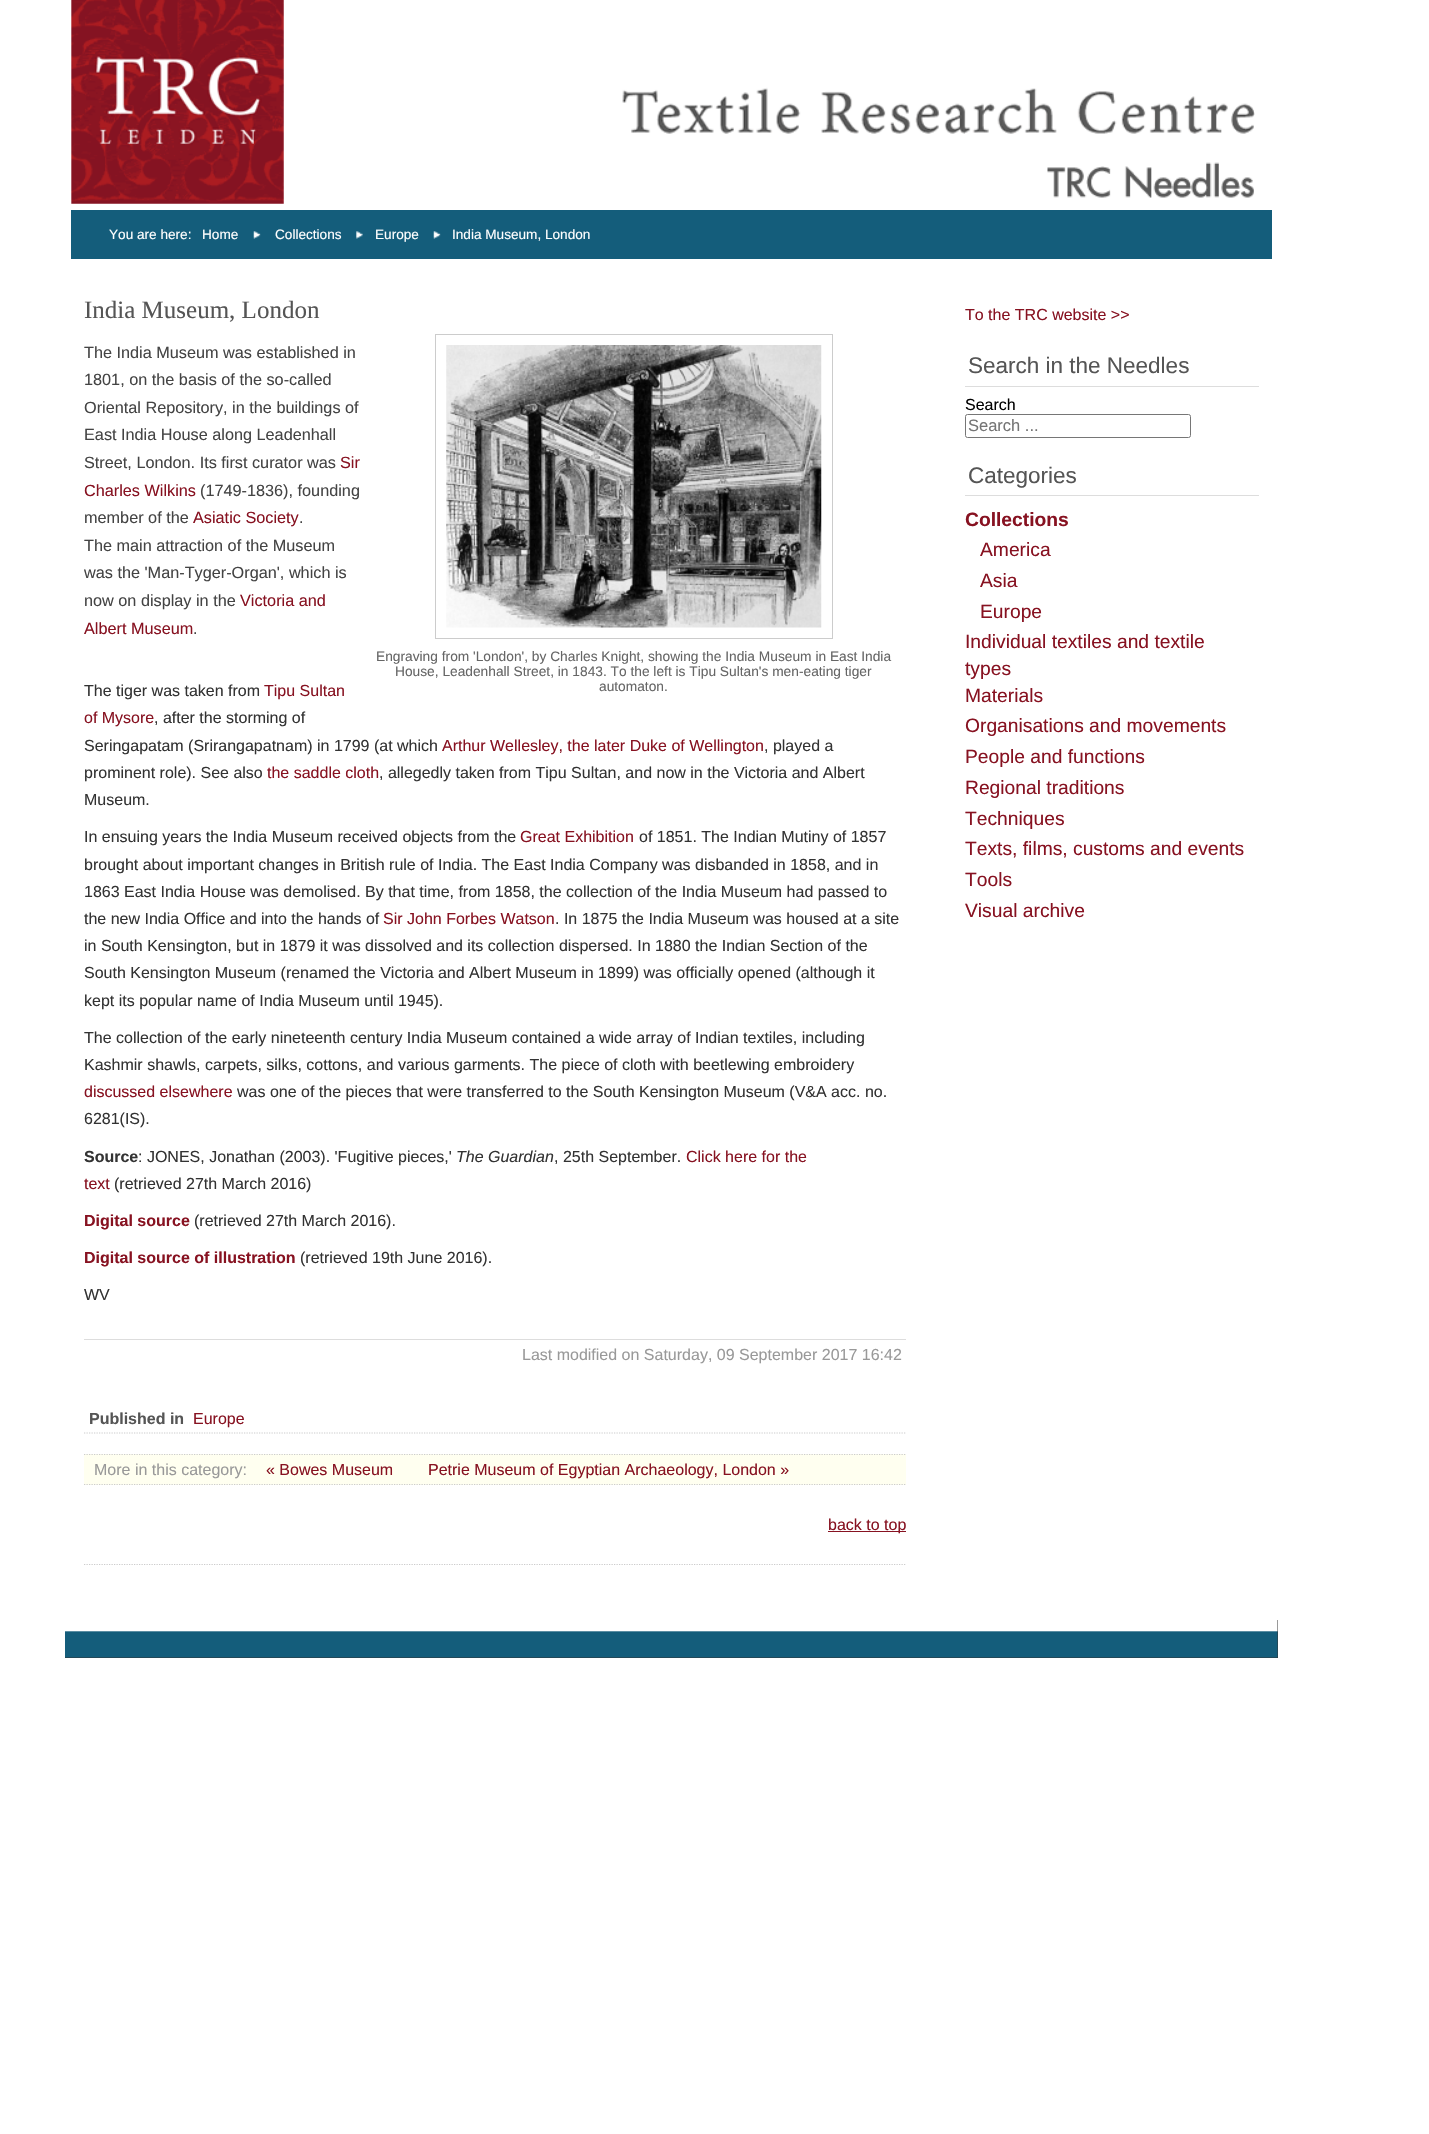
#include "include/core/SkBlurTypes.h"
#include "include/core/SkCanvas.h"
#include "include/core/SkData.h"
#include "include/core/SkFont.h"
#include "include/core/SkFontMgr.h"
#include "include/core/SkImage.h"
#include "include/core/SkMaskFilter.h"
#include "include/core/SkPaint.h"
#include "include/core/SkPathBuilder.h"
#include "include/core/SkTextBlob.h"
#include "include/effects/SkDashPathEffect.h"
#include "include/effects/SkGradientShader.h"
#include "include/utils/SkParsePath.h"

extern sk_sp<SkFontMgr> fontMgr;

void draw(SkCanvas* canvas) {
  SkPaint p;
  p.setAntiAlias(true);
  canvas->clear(SK_ColorWHITE);
  canvas->drawImageRect(SkImages::DeferredFromEncodedData(SkData::MakeFromFileName("images/1.png")), SkRect::MakeLTRB(71, 0, 1255, 204), SkSamplingOptions());
  p.setColor(SkColorSetRGB(20, 93, 123));
  canvas->drawRect(SkRect::MakeLTRB(71, 210, 1272, 259), p);
  canvas->drawImageRect(SkImages::DeferredFromEncodedData(SkData::MakeFromFileName("images/2.png")), SkRect::MakeLTRB(253, 231, 261, 239), SkSamplingOptions());
  canvas->drawImageRect(SkImages::DeferredFromEncodedData(SkData::MakeFromFileName("images/3.png")), SkRect::MakeLTRB(356, 231, 363, 239), SkSamplingOptions());
  canvas->drawImageRect(SkImages::DeferredFromEncodedData(SkData::MakeFromFileName("images/2.png")), SkRect::MakeLTRB(433, 231, 441, 239), SkSamplingOptions());
  p.setStyle(SkPaint::kStroke_Style);
  p.setStrokeWidth(1.2f);
  p.setColor(SkColorSetRGB(204, 204, 204));
  p.setPathEffect(SkDashPathEffect::Make({{1.25f, 1.25f}}, 0));
  canvas->drawPath(SkPathBuilder().moveTo(84, 1564.5f).lineTo(906, 1564.5f).detach(), p);
  p.setPathEffect(nullptr);
  p.setStrokeWidth(1);
  canvas->drawRect(SkRect::MakeLTRB(435.5f, 334.5f, 832.5f, 638.5f), p);
  canvas->drawImageRect(SkImages::DeferredFromEncodedData(SkData::MakeFromFileName("images/4.png")), SkRect::MakeLTRB(446, 345, 822, 628), SkSamplingOptions());
  p.setStyle(SkPaint::kFill_Style);
  p.setColor(SkColorSetRGB(221, 221, 221));
  canvas->drawRect(SkRect::MakeLTRB(84, 1339, 906, 1340), p);
  p.setStyle(SkPaint::kStroke_Style);
  p.setStrokeWidth(1.2f);
  p.setColor(SkColorSetRGB(204, 204, 204));
  p.setPathEffect(SkDashPathEffect::Make({{1.25f, 1.25f}}, 0));
  canvas->drawPath(SkPathBuilder().moveTo(84, 1433).lineTo(906, 1433).detach(), p);
  p.setPathEffect(nullptr);
  p.setStyle(SkPaint::kFill_Style);
  p.setColor(SkColorSetRGB(255, 255, 240));
  canvas->drawRect(SkRect::MakeLTRB(84, 1454, 906, 1485), p);
  p.setStyle(SkPaint::kStroke_Style);
  p.setColor(SkColorSetRGB(204, 204, 204));
  p.setPathEffect(SkDashPathEffect::Make({{1.25f, 1.25f}}, 0));
  canvas->drawPath(SkPathBuilder().moveTo(84, 1454.5f).lineTo(906, 1454.5f).detach(), p);
  p.setPathEffect(nullptr);
  p.setPathEffect(SkDashPathEffect::Make({{1.25f, 1.25f}}, 0));
  canvas->drawPath(SkPathBuilder().moveTo(84, 1484.5f).lineTo(906, 1484.5f).detach(), p);
  p.setPathEffect(nullptr);
  p.setStyle(SkPaint::kFill_Style);
  p.setColor(SkColorSetRGB(135, 18, 33));
  canvas->drawRect(SkRect::MakeLTRB(828, 1531, 906, 1532), p);
  p.setColor(SkColorSetRGB(221, 221, 221));
  canvas->drawRect(SkRect::MakeLTRB(965, 386, 1259, 387), p);
  p.setStyle(SkPaint::kStroke_Style);
  p.setStrokeWidth(1);
  p.setColor(SkColorSetRGB(118, 118, 118));
  canvas->drawRoundRect(SkRect::MakeLTRB(965.5f, 414.5f, 1190.5f, 437.5f), 2, 2, p);
  p.setStyle(SkPaint::kFill_Style);
  p.setColor(SkColorSetRGB(221, 221, 221));
  canvas->drawRect(SkRect::MakeLTRB(965, 495, 1259, 496), p);
  p.setColor(SkColorSetRGB(51, 51, 51));
  canvas->drawRect(SkRect::MakeLTRB(65, 1620, 1278, 1658), p);
  canvas->drawImageRect(SkImages::DeferredFromEncodedData(SkData::MakeFromFileName("images/5.png")), SkRect::MakeLTRB(65, 1620, 1278, 1658), SkSamplingOptions());
  SkFont font1(fontMgr->matchFamilyStyle("Liberation Sans", SkFontStyle::Normal()), 13.6f);
  font1.setSubpixel(true);
  p.setColor(SK_ColorWHITE);
  canvas->drawString("You are here:", 109, 239, font1, p);
  canvas->drawString("Home", 202, 239, font1, p);
  canvas->drawString("Collections", 275, 239, font1, p);
  canvas->drawString("Europe", 375, 239, font1, p);
  canvas->drawString("India Museum, London", 452, 239, font1, p);
  SkFont font2(fontMgr->matchFamilyStyle("Liberation Serif", SkFontStyle::Normal()), 25);
  font2.setSubpixel(true);
  p.setColor(SkColorSetRGB(85, 85, 85));
  canvas->drawString("India Museum, London", 84, 318, font2, p);
  SkFont font3(fontMgr->matchFamilyStyle("Liberation Sans", SkFontStyle::Normal()), 16.25f);
  font3.setSubpixel(true);
  p.setColor(SkColorSetRGB(68, 68, 68));
  canvas->drawString("The India Museum was established in", 84, 358, font3, p);
  canvas->drawString("1801, on the basis of the so-called", 84, 385, font3, p);
  canvas->drawString("Oriental Repository, in the buildings of", 84, 413, font3, p);
  canvas->drawString("East India House along Leadenhall", 84, 440, font3, p);
  canvas->drawString("Street, London. Its first curator was", 84, 468, font3, p);
  p.setColor(SkColorSetRGB(135, 18, 33));
  canvas->drawString("Sir", 340, 468, font3, p);
  canvas->drawString("Charles Wilkins", 84, 496, font3, p);
  p.setColor(SkColorSetRGB(68, 68, 68));
  canvas->drawString("(1749-1836), founding", 200, 496, font3, p);
  canvas->drawString("member of the", 84, 523, font3, p);
  p.setColor(SkColorSetRGB(135, 18, 33));
  canvas->drawString("Asiatic Society", 193, 523, font3, p);
  p.setColor(SkColorSetRGB(68, 68, 68));
  canvas->drawString(".", 299, 523, font3, p);
  canvas->drawString("The main attraction of the Museum", 84, 551, font3, p);
  canvas->drawString("was the 'Man-Tyger-Organ', which is", 84, 578, font3, p);
  canvas->drawString("now on display in the", 84, 606, font3, p);
  p.setColor(SkColorSetRGB(135, 18, 33));
  canvas->drawString("Victoria and", 240, 606, font3, p);
  canvas->drawString("Albert Museum", 84, 634, font3, p);
  p.setColor(SkColorSetRGB(68, 68, 68));
  canvas->drawString(".", 193, 634, font3, p);
  SkFont font4(fontMgr->matchFamilyStyle("Liberation Sans", SkFontStyle::Normal()), 13.75f);
  font4.setSubpixel(true);
  p.setColor(SkColorSetRGB(102, 102, 102));
  canvas->drawString("Engraving from 'London', by Charles Knight, showing the India Museum in East India", 376, 661, font4, p);
  canvas->drawString("House, Leadenhall Street, in 1843. To the left is Tipu Sultan's men-eating tiger", 395, 676, font4, p);
  canvas->drawString("automaton.", 599, 691, font4, p);
  SkFont font5(fontMgr->matchFamilyStyle("Liberation Sans", SkFontStyle::Normal()), 16);
  font5.setSubpixel(true);
  p.setColor(SkColorSetRGB(51, 51, 51));
  canvas->drawString("The tiger was taken from", 84, 696, font5, p);
  p.setColor(SkColorSetRGB(135, 18, 33));
  canvas->drawString("Tipu Sultan", 264, 696, font5, p);
  canvas->drawString("of Mysore", 84, 723, font5, p);
  p.setColor(SkColorSetRGB(51, 51, 51));
  canvas->drawString(", after the storming of", 154, 723, font5, p);
  canvas->drawString("Seringapatam (Srirangapatnam) in 1799 (at which", 84, 751, font5, p);
  p.setColor(SkColorSetRGB(135, 18, 33));
  canvas->drawString("Arthur Wellesley, the later Duke of Wellington", 442, 751, font5, p);
  p.setColor(SkColorSetRGB(51, 51, 51));
  canvas->drawString(", played a", 764, 751, font5, p);
  canvas->drawString("prominent role). See also", 84, 778, font5, p);
  p.setColor(SkColorSetRGB(135, 18, 33));
  canvas->drawString("the saddle cloth", 267, 778, font5, p);
  p.setColor(SkColorSetRGB(51, 51, 51));
  canvas->drawString(", allegedly taken from Tipu Sultan, and now in the Victoria and Albert", 379, 778, font5, p);
  canvas->drawString("Museum.", 84, 805, font5, p);
  canvas->drawString("In ensuing years the India Museum received objects from the", 84, 842, font5, p);
  p.setColor(SkColorSetRGB(135, 18, 33));
  canvas->drawString("Great Exhibition", 520, 842, font5, p);
  p.setColor(SkColorSetRGB(51, 51, 51));
  canvas->drawString("of 1851. The Indian Mutiny of 1857", 639, 842, font5, p);
  canvas->drawString("brought about important changes in British rule of India. The East India Company was disbanded in 1858, and in", 84, 870, font5, p);
  canvas->drawString("1863 East India House was demolised. By that time, from 1858, the collection of the India Museum had passed to", 84, 897, font5, p);
  canvas->drawString("the new India Office and into the hands of", 84, 924, font5, p);
  p.setColor(SkColorSetRGB(135, 18, 33));
  canvas->drawString("Sir John Forbes Watson", 383, 924, font5, p);
  p.setColor(SkColorSetRGB(51, 51, 51));
  canvas->drawString(". In 1875 the India Museum was housed at a site", 555, 924, font5, p);
  canvas->drawString("in South Kensington, but in 1879 it was dissolved and its collection dispersed. In 1880 the Indian Section of the", 84, 951, font5, p);
  canvas->drawString("South Kensington Museum (renamed the Victoria and Albert Museum in 1899) was officially opened (although it", 84, 978, font5, p);
  canvas->drawString("kept its popular name of India Museum until 1945).", 84, 1006, font5, p);
  canvas->drawString("The collection of the early nineteenth century India Museum contained a wide array of Indian textiles, including", 84, 1043, font5, p);
  canvas->drawString("Kashmir shawls, carpets, silks, cottons, and various garments. The piece of cloth with beetlewing embroidery", 84, 1070, font5, p);
  p.setColor(SkColorSetRGB(135, 18, 33));
  canvas->drawString("discussed elsewhere", 84, 1097, font5, p);
  p.setColor(SkColorSetRGB(51, 51, 51));
  canvas->drawString("was one of the pieces that were transferred to the South Kensington Museum (V&A acc. no.", 237, 1097, font5, p);
  canvas->drawString("6281(IS).", 84, 1124, font5, p);
  SkFont font6(fontMgr->matchFamilyStyle("Liberation Sans", SkFontStyle::Bold()), 16);
  font6.setSubpixel(true);
  canvas->drawString("Source", 84, 1162, font6, p);
  canvas->drawString(": JONES, Jonathan (2003). 'Fugitive pieces,'", 138, 1162, font5, p);
  SkFont font7(fontMgr->matchFamilyStyle("Liberation Sans", SkFontStyle::Italic()), 16);
  font7.setSubpixel(true);
  canvas->drawString("The Guardian", 456, 1162, font7, p);
  canvas->drawString(", 25th September.", 554, 1162, font5, p);
  p.setColor(SkColorSetRGB(135, 18, 33));
  canvas->drawString("Click here for the", 686, 1162, font5, p);
  canvas->drawString("text", 84, 1189, font5, p);
  p.setColor(SkColorSetRGB(51, 51, 51));
  canvas->drawString("(retrieved 27th March 2016)", 114, 1189, font5, p);
  p.setColor(SkColorSetRGB(135, 18, 33));
  canvas->drawString("Digital source", 84, 1226, font6, p);
  p.setColor(SkColorSetRGB(51, 51, 51));
  canvas->drawString("(retrieved 27th March 2016).", 194, 1226, font5, p);
  p.setColor(SkColorSetRGB(135, 18, 33));
  canvas->drawString("Digital source of illustration", 84, 1263, font6, p);
  p.setColor(SkColorSetRGB(51, 51, 51));
  canvas->drawString("(retrieved 19th June 2016).", 300, 1263, font5, p);
  canvas->drawString("WV", 84, 1300, font5, p);
  p.setColor(SkColorSetRGB(153, 153, 153));
  canvas->drawString("Last modified on Saturday, 09 September 2017 16:42", 522, 1360, font5, p);
  p.setColor(SkColorSetRGB(85, 85, 85));
  canvas->drawString("Published in", 89, 1424, font6, p);
  p.setColor(SkColorSetRGB(135, 18, 33));
  canvas->drawString("Europe", 193, 1424, font5, p);
  p.setColor(SkColorSetRGB(153, 153, 153));
  canvas->drawString("More in this category:", 94, 1475, font5, p);
  p.setColor(SkColorSetRGB(135, 18, 33));
  canvas->drawString("« Bowes Museum", 266, 1475, font5, p);
  canvas->drawString("Petrie Museum of Egyptian Archaeology, London »", 428, 1475, font5, p);
  canvas->drawString("back to top", 828, 1530, font5, p);
  canvas->drawString("To the TRC website >>", 965, 320, font5, p);
  SkFont font8(fontMgr->matchFamilyStyle("Liberation Sans", SkFontStyle::Normal()), 22.5f);
  font8.setSubpixel(true);
  p.setColor(SkColorSetRGB(85, 85, 85));
  canvas->drawString("Search in the Needles", 968, 373, font8, p);
  p.setColor(SK_ColorBLACK);
  canvas->drawString("Search", 965, 410, font5, p);
  SkFont font9(fontMgr->matchFamilyStyle("Liberation Sans", SkFontStyle::Normal()), 16.5f);
  font9.setSubpixel(true);
  p.setColor(SkColorSetRGB(117, 117, 117));
  canvas->drawString("Search ...", 968, 431, font9, p);
  p.setColor(SkColorSetRGB(85, 85, 85));
  canvas->drawString("Categories", 968, 483, font8, p);
  SkFont font10(fontMgr->matchFamilyStyle("Liberation Sans", SkFontStyle::Bold()), 19.25f);
  font10.setSubpixel(true);
  p.setColor(SkColorSetRGB(135, 18, 33));
  canvas->drawString("Collections", 965, 526, font10, p);
  SkFont font11(fontMgr->matchFamilyStyle("Liberation Sans", SkFontStyle::Normal()), 19.25f);
  font11.setSubpixel(true);
  canvas->drawString("America", 980, 556, font11, p);
  canvas->drawString("Asia", 980, 587, font11, p);
  canvas->drawString("Europe", 980, 618, font11, p);
  canvas->drawString("Individual textiles and textile", 965, 648, font11, p);
  canvas->drawString("types", 965, 675, font11, p);
  canvas->drawString("Materials", 965, 702, font11, p);
  canvas->drawString("Organisations and movements", 965, 732, font11, p);
  canvas->drawString("People and functions", 965, 763, font11, p);
  canvas->drawString("Regional traditions", 965, 794, font11, p);
  canvas->drawString("Techniques", 965, 825, font11, p);
  canvas->drawString("Texts, films, customs and events", 965, 855, font11, p);
  canvas->drawString("Tools", 965, 886, font11, p);
  canvas->drawString("Visual archive", 965, 917, font11, p);
}
